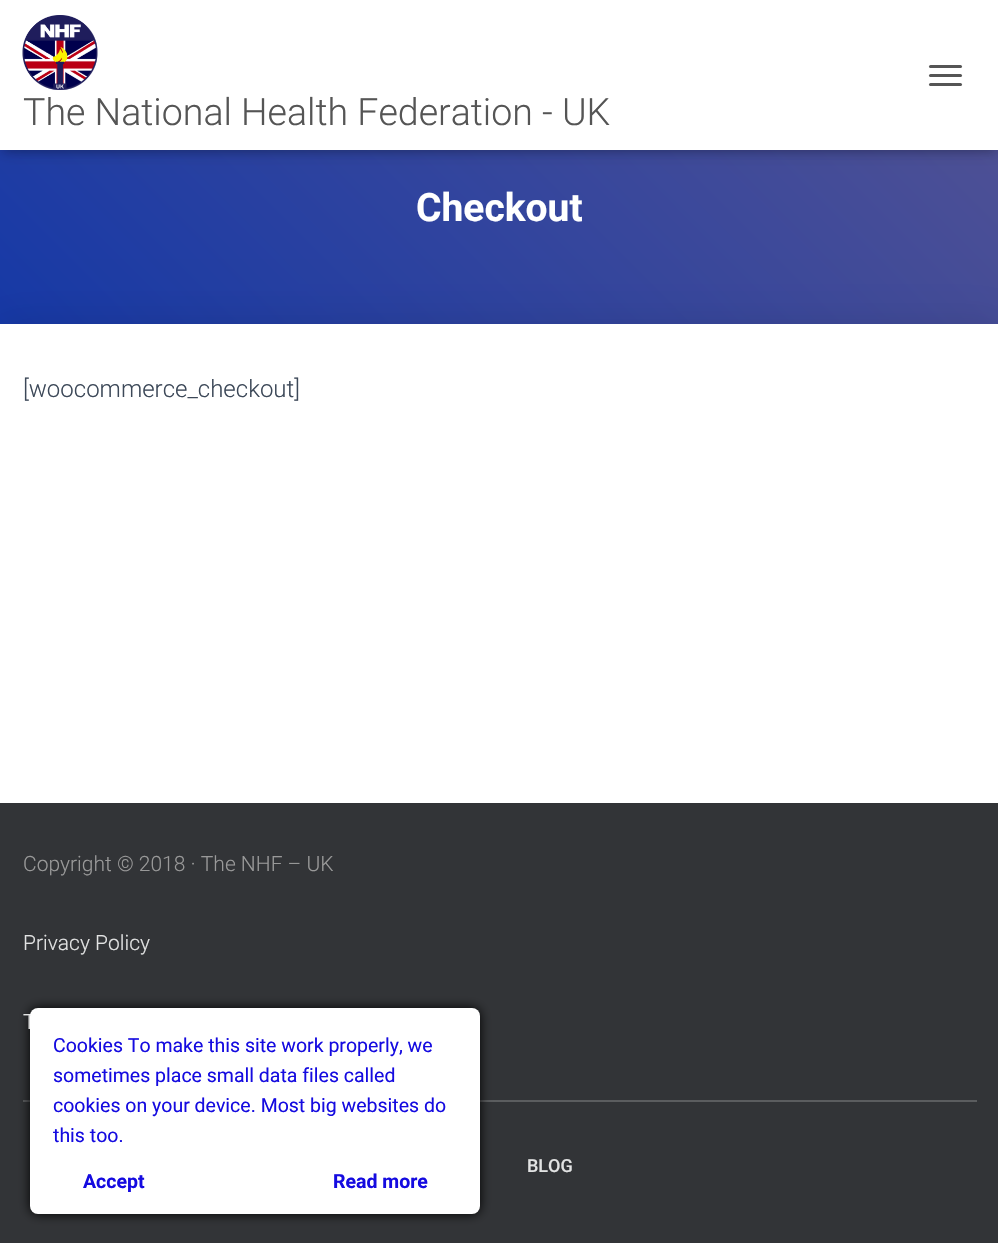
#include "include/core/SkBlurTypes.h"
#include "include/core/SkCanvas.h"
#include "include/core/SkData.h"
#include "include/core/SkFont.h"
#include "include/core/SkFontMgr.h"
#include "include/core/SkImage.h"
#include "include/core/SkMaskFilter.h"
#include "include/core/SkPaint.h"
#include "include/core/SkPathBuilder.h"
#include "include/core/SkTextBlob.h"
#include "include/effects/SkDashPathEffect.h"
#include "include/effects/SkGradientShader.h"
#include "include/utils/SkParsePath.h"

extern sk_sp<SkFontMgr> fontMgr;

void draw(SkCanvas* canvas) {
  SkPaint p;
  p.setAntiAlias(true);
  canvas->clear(SK_ColorWHITE);
  {
    const SkColor colors[] = {SkColorSetRGB(18, 55, 168), SkColorSetRGB(84, 83, 147)};
    const float stops[] = {0, 1};
    const SkPoint ends[] = {{146, 560}, {853, -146}};
    p.setShader(SkGradientShader::MakeLinear(ends, colors, stops, 2, SkTileMode::kClamp));
    p.setAlpha(255);
  }
  canvas->drawRect(SkRect::MakeLTRB(0, 150, 998, 324), p);
  p.setShader(nullptr);
  p.setColor(SkColorSetARGB(26, 0, 0, 0));
  p.setMaskFilter(SkMaskFilter::MakeBlur(kNormal_SkBlurStyle, 4));
  canvas->drawRect(SkRect::MakeLTRB(3, 9, 996, 153), p);
  p.setMaskFilter(nullptr);
  p.setColor(SkColorSetARGB(31, 0, 0, 0));
  p.setMaskFilter(SkMaskFilter::MakeBlur(kNormal_SkBlurStyle, 7.5f));
  canvas->drawRect(SkRect::MakeLTRB(0, 2, 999, 152), p);
  p.setMaskFilter(nullptr);
  p.setColor(SkColorSetARGB(107, 0, 0, 0));
  p.setMaskFilter(SkMaskFilter::MakeBlur(kNormal_SkBlurStyle, 7.5f));
  canvas->drawRect(SkRect::MakeLTRB(9, 11, 990, 143), p);
  p.setMaskFilter(nullptr);
  p.setColor(SK_ColorWHITE);
  canvas->drawRect(SkRect::MakeLTRB(0, 0, 998, 150), p);
  p.setColor(SkColorSetRGB(85, 85, 85));
  canvas->drawRoundRect(SkRect::MakeLTRB(929, 65, 962, 68), 1.5f, 1.5f, p);
  canvas->drawRoundRect(SkRect::MakeLTRB(929, 74, 962, 77), 1.5f, 1.5f, p);
  canvas->drawRoundRect(SkRect::MakeLTRB(929, 83, 962, 86), 1.5f, 1.5f, p);
  canvas->drawImageRect(SkImages::DeferredFromEncodedData(SkData::MakeFromFileName("images/1.png")), SkRect::MakeLTRB(22, 15, 98, 90), SkSamplingOptions());
  p.setColor(SkColorSetARGB(31, 0, 0, 0));
  p.setMaskFilter(SkMaskFilter::MakeBlur(kNormal_SkBlurStyle, 22.5f));
  canvas->drawRect(SkRect::MakeLTRB(-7, 326, 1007, 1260), p);
  p.setMaskFilter(nullptr);
  p.setColor(SK_ColorWHITE);
  canvas->drawRect(SkRect::MakeLTRB(0, 324, 998, 803), p);
  p.setColor(SkColorSetRGB(50, 52, 55));
  canvas->drawRect(SkRect::MakeLTRB(0, 803, 998, 1243), p);
  p.setColor(SkColorSetRGB(91, 93, 95));
  canvas->drawRect(SkRect::MakeLTRB(23, 1100, 977, 1102), p);
  p.setColor(SK_ColorBLACK);
  p.setMaskFilter(SkMaskFilter::MakeBlur(kNormal_SkBlurStyle, 6));
  canvas->drawRoundRect(SkRect::MakeLTRB(30, 1008, 480, 1214), 8, 8, p);
  p.setMaskFilter(nullptr);
  SkFont font1(fontMgr->matchFamilyStyle("Roboto", SkFontStyle(300, SkFontStyle::kNormal_Width, SkFontStyle::kUpright_Slant)), 37.5f);
  font1.setSubpixel(true);
  p.setColor(SkColorSetRGB(85, 85, 85));
  canvas->drawString("The National Health Federation - UK", 23, 125, font1, p);
  SkFont font2(fontMgr->matchFamilyStyle("Roboto", SkFontStyle::Bold()), 39);
  font2.setSubpixel(true);
  p.setColor(SK_ColorWHITE);
  canvas->drawString("Checkout", 416, 221, font2, p);
  SkFont font3(fontMgr->matchFamilyStyle("Roboto", SkFontStyle(300, SkFontStyle::kNormal_Width, SkFontStyle::kUpright_Slant)), 24);
  font3.setSubpixel(true);
  p.setColor(SkColorSetRGB(60, 72, 88));
  canvas->drawString("[woocommerce_checkout]", 23, 397, font3, p);
  SkFont font4(fontMgr->matchFamilyStyle("Roboto", SkFontStyle(300, SkFontStyle::kNormal_Width, SkFontStyle::kUpright_Slant)), 21);
  font4.setSubpixel(true);
  p.setColor(SkColorSetRGB(153, 153, 153));
  canvas->drawString("Copyright © 2018 · The NHF – UK", 23, 871, font4, p);
  p.setColor(SkColorSetRGB(226, 227, 227));
  canvas->drawString("Privacy Policy", 23, 950, font4, p);
  canvas->drawString("T", 23, 1029, font4, p);
  SkFont font5(fontMgr->matchFamilyStyle("Roboto", SkFontStyle(500, SkFontStyle::kNormal_Width, SkFontStyle::kUpright_Slant)), 18);
  font5.setSubpixel(true);
  canvas->drawString("BLOG", 527, 1172, font5, p);
  p.setColor(SK_ColorWHITE);
  canvas->drawRoundRect(SkRect::MakeLTRB(30, 1008, 480, 1214), 8, 8, p);
  SkFont font6(fontMgr->matchFamilyStyle("Roboto", SkFontStyle::Normal()), 19.5f);
  font6.setSubpixel(true);
  p.setColor(SkColorSetRGB(21, 11, 224));
  canvas->drawString("Cookies To make this site work properly, we", 53, 1052, font6, p);
  canvas->drawString("sometimes place small data files called", 53, 1082, font6, p);
  canvas->drawString("cookies on your device. Most big websites do", 53, 1112, font6, p);
  canvas->drawString("this too.", 53, 1142, font6, p);
  SkFont font7(fontMgr->matchFamilyStyle("Roboto", SkFontStyle::Bold()), 19.5f);
  font7.setSubpixel(true);
  canvas->drawString("Accept", 83, 1188, font7, p);
  canvas->drawString("Read more", 333, 1188, font7, p);
}
